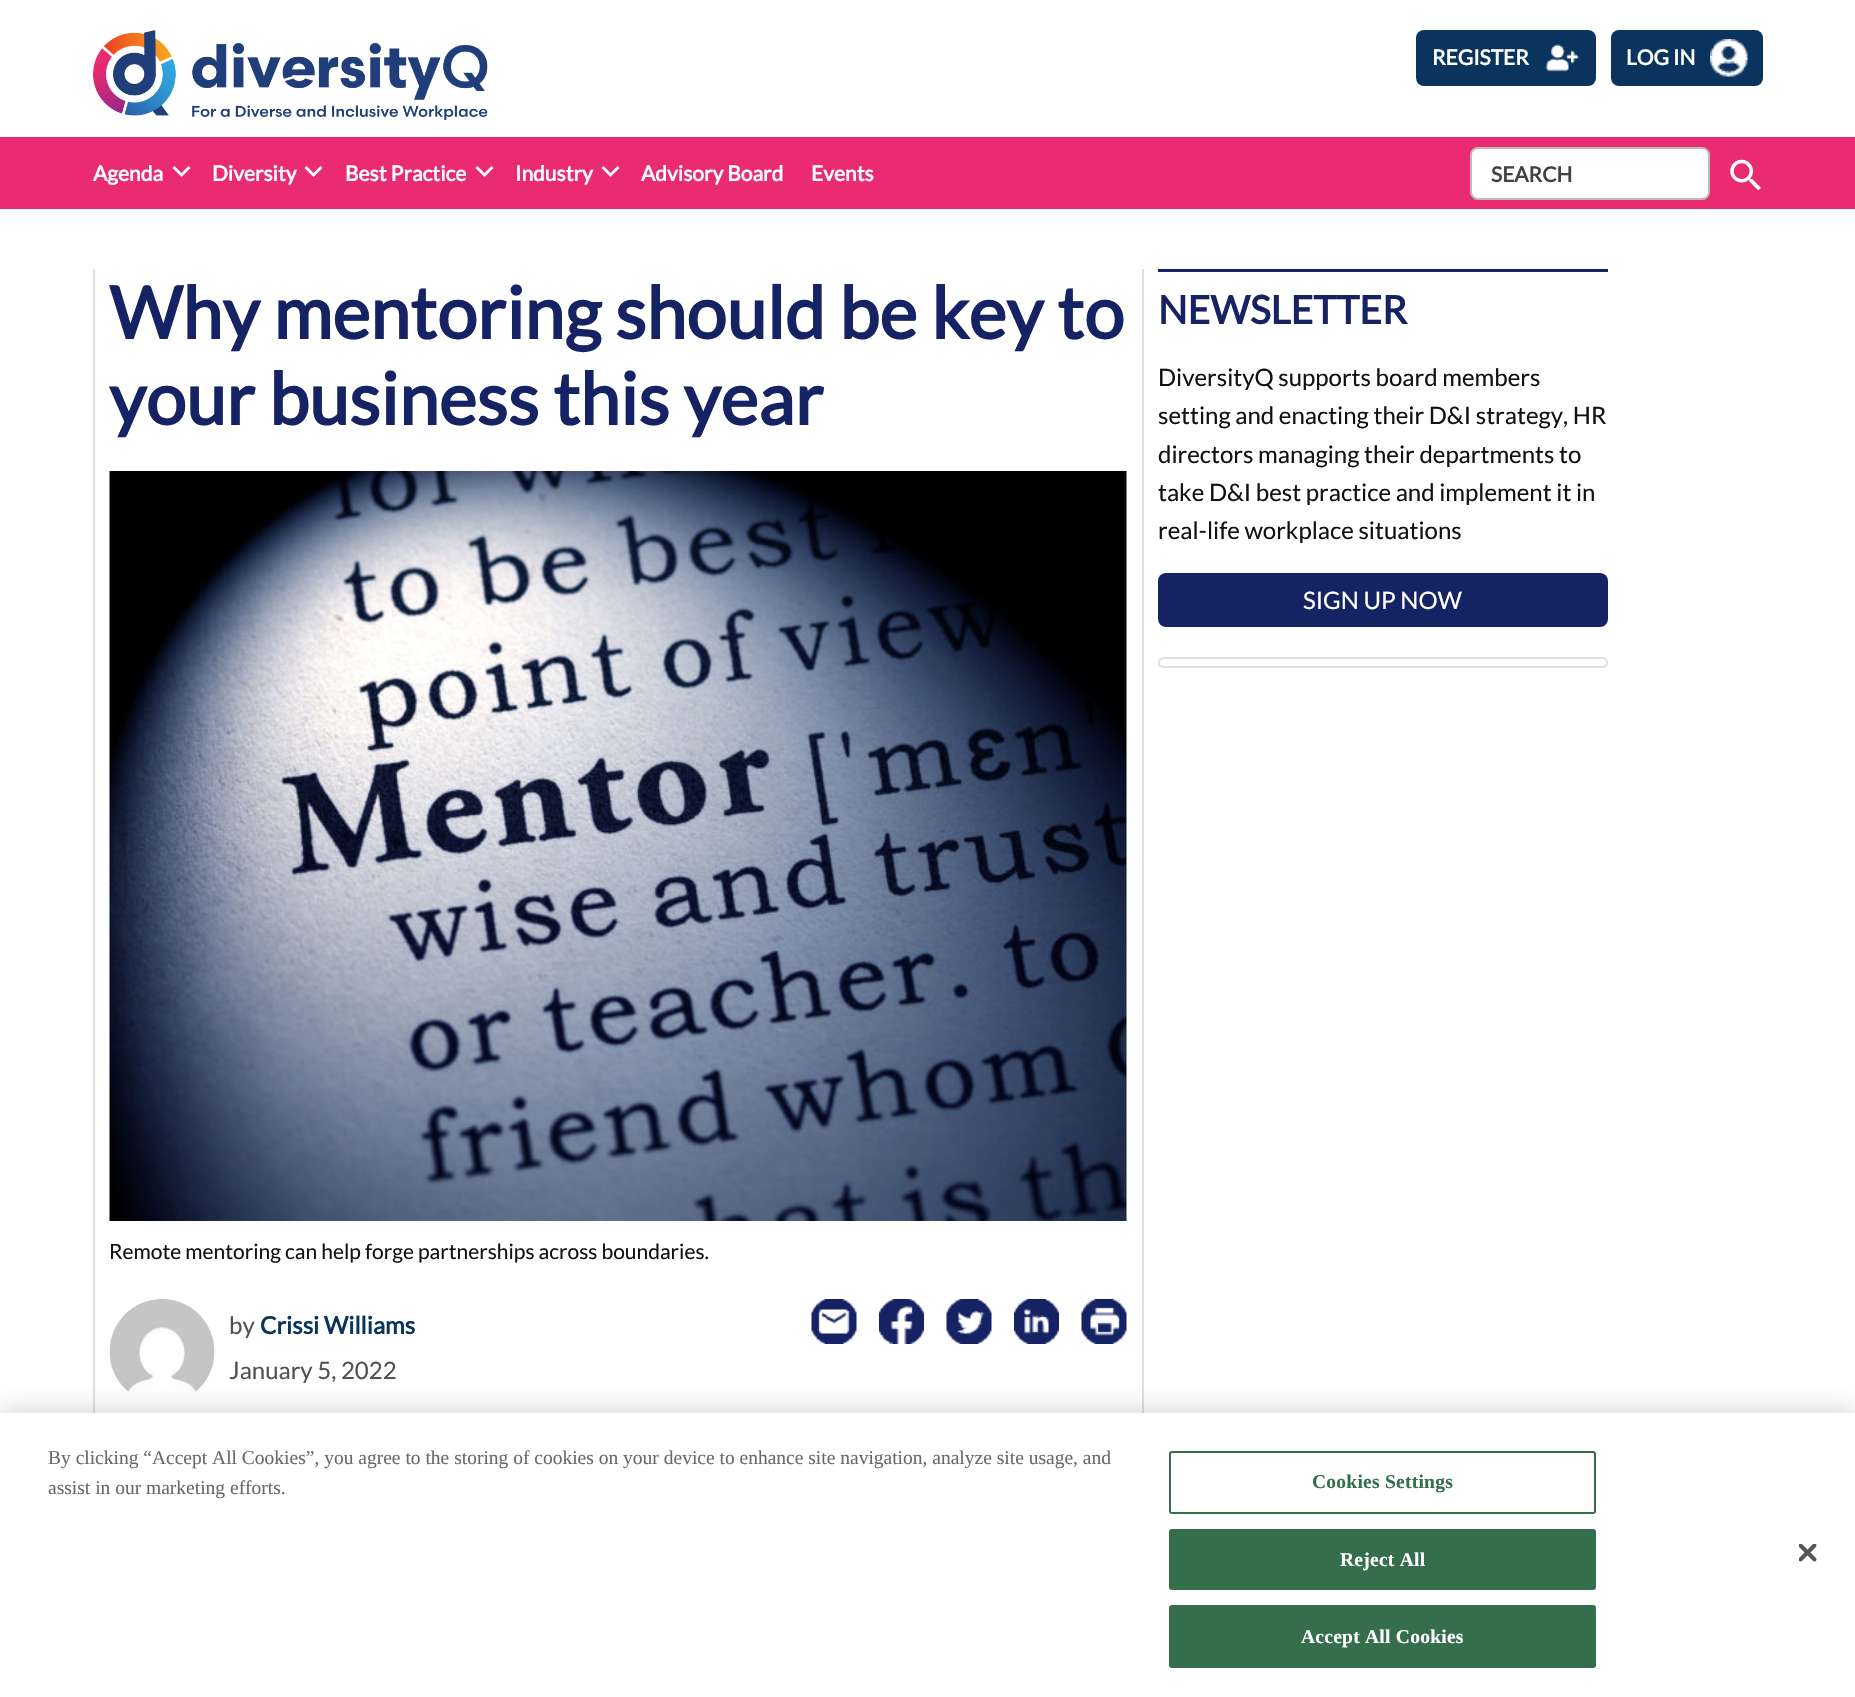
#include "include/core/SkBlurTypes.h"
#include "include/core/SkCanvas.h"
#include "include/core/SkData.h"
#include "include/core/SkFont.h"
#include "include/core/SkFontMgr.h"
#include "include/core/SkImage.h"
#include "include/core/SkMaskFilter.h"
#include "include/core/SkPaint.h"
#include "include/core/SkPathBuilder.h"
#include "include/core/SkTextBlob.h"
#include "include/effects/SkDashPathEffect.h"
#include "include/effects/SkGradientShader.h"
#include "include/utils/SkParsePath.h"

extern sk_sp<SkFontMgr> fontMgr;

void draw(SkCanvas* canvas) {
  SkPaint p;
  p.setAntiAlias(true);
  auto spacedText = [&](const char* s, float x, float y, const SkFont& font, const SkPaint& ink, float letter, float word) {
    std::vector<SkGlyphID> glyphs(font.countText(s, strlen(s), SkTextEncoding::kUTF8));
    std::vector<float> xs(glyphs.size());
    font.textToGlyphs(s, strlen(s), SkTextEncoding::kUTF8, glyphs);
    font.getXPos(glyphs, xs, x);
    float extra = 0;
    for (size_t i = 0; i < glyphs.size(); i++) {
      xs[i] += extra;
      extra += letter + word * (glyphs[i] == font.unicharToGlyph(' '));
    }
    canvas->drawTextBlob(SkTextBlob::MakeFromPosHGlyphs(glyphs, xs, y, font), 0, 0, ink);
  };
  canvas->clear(SK_ColorWHITE);
  canvas->drawImageRect(SkImages::DeferredFromEncodedData(SkData::MakeFromFileName("images/1.png")), SkRect::MakeLTRB(93, 30, 488, 120), SkSamplingOptions());
  p.setColor(SkColorSetRGB(10, 52, 94));
  canvas->drawRoundRect(SkRect::MakeLTRB(1416, 30, 1596, 86), 8, 8, p);
  canvas->drawImageRect(SkImages::DeferredFromEncodedData(SkData::MakeFromFileName("images/2.png")), SkRect::MakeLTRB(1545, 44, 1579, 72), SkSamplingOptions());
  canvas->drawRoundRect(SkRect::MakeLTRB(1611, 30, 1763, 86), 8, 8, p);
  canvas->drawImageRect(SkImages::DeferredFromEncodedData(SkData::MakeFromFileName("images/3.png")), SkRect::MakeLTRB(1710, 39, 1748, 77), SkSamplingOptions());
  p.setColor(SkColorSetRGB(234, 42, 113));
  canvas->drawPath(SkPathBuilder().moveTo(-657, 137).lineTo(-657, 209).lineTo(1013, 209).lineTo(1013, 208).lineTo(93, 208).lineTo(93, 137).close().detach(), p);
  canvas->drawPath(SkPathBuilder().moveTo(843, 208).lineTo(843, 209).lineTo(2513, 209).lineTo(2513, 137).lineTo(1762, 137).lineTo(1762, 208).close().detach(), p);
  canvas->drawRect(SkRect::MakeLTRB(93, 137, 1762, 208), p);
  p.setColor(SK_ColorWHITE);
  canvas->drawPath(SkPathBuilder().moveTo(174.5f, 166).lineTo(181.5f, 173).lineTo(188.5f, 166).lineTo(190.5f, 168).lineTo(181.5f, 177).lineTo(172.5f, 168).close().detach(), p);
  canvas->drawPath(SkPathBuilder().moveTo(306.5f, 166).lineTo(313.5f, 173).lineTo(320.5f, 166).lineTo(322.5f, 168).lineTo(313.5f, 177).lineTo(304.5f, 168).close().detach(), p);
  canvas->drawPath(SkPathBuilder().moveTo(477.5f, 166).lineTo(484.5f, 173).lineTo(491.5f, 166).lineTo(493.5f, 168).lineTo(484.5f, 177).lineTo(475.5f, 168).close().detach(), p);
  canvas->drawPath(SkPathBuilder().moveTo(603.5f, 166).lineTo(610.5f, 173).lineTo(617.5f, 166).lineTo(619.5f, 168).lineTo(610.5f, 177).lineTo(601.5f, 168).close().detach(), p);
  canvas->drawRoundRect(SkRect::MakeLTRB(1471, 148, 1709, 199), 7, 7, p);
  p.setStyle(SkPaint::kStroke_Style);
  p.setStrokeWidth(2);
  p.setColor(SkColorSetRGB(187, 187, 187));
  canvas->drawRoundRect(SkRect::MakeLTRB(1471, 148, 1709, 199), 7, 7, p);
  canvas->drawImageRect(SkImages::DeferredFromEncodedData(SkData::MakeFromFileName("images/4.png")), SkRect::MakeLTRB(1730, 159, 1761, 191), SkSamplingOptions());
  p.setStyle(SkPaint::kFill_Style);
  p.setColor(SkColorSetRGB(224, 224, 224));
  canvas->drawRect(SkRect::MakeLTRB(1142, 269, 1144, 1413), p);
  canvas->drawRect(SkRect::MakeLTRB(93, 269, 95, 1413), p);
  canvas->drawImageRect(SkImages::DeferredFromEncodedData(SkData::MakeFromFileName("images/5.png")), SkRect::MakeLTRB(109, 471, 1127, 1221), SkSamplingOptions());
  canvas->drawImageRect(SkImages::DeferredFromEncodedData(SkData::MakeFromFileName("images/6.png")), SkRect::MakeLTRB(109, 1299, 215, 1393), SkSamplingOptions());
  canvas->drawImageRect(SkImages::DeferredFromEncodedData(SkData::MakeFromFileName("images/7.png")), SkRect::MakeLTRB(811, 1299, 857, 1344), SkSamplingOptions());
  canvas->drawImageRect(SkImages::DeferredFromEncodedData(SkData::MakeFromFileName("images/8.png")), SkRect::MakeLTRB(879, 1299, 924, 1344), SkSamplingOptions());
  canvas->drawImageRect(SkImages::DeferredFromEncodedData(SkData::MakeFromFileName("images/9.png")), SkRect::MakeLTRB(946, 1299, 992, 1344), SkSamplingOptions());
  canvas->drawImageRect(SkImages::DeferredFromEncodedData(SkData::MakeFromFileName("images/10.png")), SkRect::MakeLTRB(1014, 1299, 1059, 1344), SkSamplingOptions());
  canvas->drawImageRect(SkImages::DeferredFromEncodedData(SkData::MakeFromFileName("images/11.png")), SkRect::MakeLTRB(1081, 1299, 1127, 1344), SkSamplingOptions());
  p.setColor(SkColorSetRGB(21, 34, 100));
  canvas->drawRect(SkRect::MakeLTRB(1158, 269, 1608, 272), p);
  canvas->drawRoundRect(SkRect::MakeLTRB(1158, 573, 1608, 627), 8, 8, p);
  p.setStyle(SkPaint::kStroke_Style);
  p.setColor(SkColorSetRGB(224, 224, 224));
  canvas->drawRoundRect(SkRect::MakeLTRB(1159, 658, 1607, 667), 4.5f, 4.5f, p);
  p.setStyle(SkPaint::kFill_Style);
  p.setColor(SkColorSetARGB(51, 0, 0, 0));
  p.setMaskFilter(SkMaskFilter::MakeBlur(kNormal_SkBlurStyle, 13.5f));
  canvas->drawRect(SkRect::MakeLTRB(0, 1413, 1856, 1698), p);
  p.setMaskFilter(nullptr);
  p.setColor(SK_ColorWHITE);
  canvas->drawRect(SkRect::MakeLTRB(0, 1413, 1855, 1697), p);
  p.setStyle(SkPaint::kStroke_Style);
  p.setColor(SkColorSetRGB(52, 110, 74));
  canvas->drawRoundRect(SkRect::MakeLTRB(1170, 1452, 1595, 1513), 2, 2, p);
  p.setStyle(SkPaint::kFill_Style);
  canvas->drawRoundRect(SkRect::MakeLTRB(1170, 1530, 1595, 1589), 2, 2, p);
  p.setStyle(SkPaint::kStroke_Style);
  canvas->drawRoundRect(SkRect::MakeLTRB(1170, 1530, 1595, 1589), 2, 2, p);
  p.setStyle(SkPaint::kFill_Style);
  canvas->drawRoundRect(SkRect::MakeLTRB(1170, 1606, 1595, 1667), 2, 2, p);
  p.setStyle(SkPaint::kStroke_Style);
  canvas->drawRoundRect(SkRect::MakeLTRB(1170, 1606, 1595, 1667), 2, 2, p);
  canvas->drawImageRect(SkImages::DeferredFromEncodedData(SkData::MakeFromFileName("images/12.png")), SkRect::MakeLTRB(1799, 1544, 1817, 1562), SkSamplingOptions());
  SkFont font1(fontMgr->matchFamilyStyle("Lato", SkFontStyle::Bold()), 21);
  font1.setSubpixel(true);
  p.setStyle(SkPaint::kFill_Style);
  p.setColor(SK_ColorWHITE);
  canvas->drawString("REGISTER", 1432, 65, font1, p);
  canvas->drawString("LOG IN", 1626, 65, font1, p);
  canvas->drawString("Agenda", 93, 181, font1, p);
  canvas->drawString("Diversity", 212, 181, font1, p);
  canvas->drawString("Best Practice", 345, 181, font1, p);
  canvas->drawString("Industry", 515, 181, font1, p);
  canvas->drawString("Advisory Board", 641, 181, font1, p);
  canvas->drawString("Events", 811, 181, font1, p);
  p.setColor(SkColorSetRGB(66, 66, 66));
  canvas->drawString("SEARCH", 1491, 182, font1, p);
  SkFont font2(fontMgr->matchFamilyStyle("Lato", SkFontStyle::Bold()), 72);
  font2.setSubpixel(true);
  p.setColor(SkColorSetRGB(21, 34, 100));
  canvas->drawString("Why mentoring should be key to", 109, 339, font2, p);
  canvas->drawString("your business this year", 109, 425, font2, p);
  SkFont font3(fontMgr->matchFamilyStyle("Lato", SkFontStyle::Normal()), 21);
  font3.setSubpixel(true);
  p.setColor(SkColorSetRGB(17, 17, 17));
  canvas->drawString("Remote mentoring can help forge partnerships across boundaries.", 109, 1259, font3, p);
  SkFont font4(fontMgr->matchFamilyStyle("Lato", SkFontStyle::Normal()), 24);
  font4.setSubpixel(true);
  p.setColor(SkColorSetRGB(81, 81, 81));
  canvas->drawString("by", 229, 1334, font4, p);
  SkFont font5(fontMgr->matchFamilyStyle("Lato", SkFontStyle::Bold()), 24);
  font5.setSubpixel(true);
  p.setColor(SkColorSetRGB(10, 52, 94));
  canvas->drawString("Crissi Williams", 260, 1334, font5, p);
  p.setColor(SkColorSetRGB(81, 81, 81));
  canvas->drawString("January 5, 2022", 229, 1379, font4, p);
  SkFont font6(fontMgr->matchFamilyStyle("Lato", SkFontStyle::Bold()), 39);
  font6.setSubpixel(true);
  p.setColor(SkColorSetRGB(21, 34, 100));
  canvas->drawString("NEWSLETTER", 1158, 324, font6, p);
  p.setColor(SkColorSetRGB(17, 17, 17));
  canvas->drawString("DiversityQ supports board members", 1158, 386, font4, p);
  canvas->drawString("setting and enacting their D&I strategy, HR", 1158, 424, font4, p);
  canvas->drawString("directors managing their departments to", 1158, 463, font4, p);
  canvas->drawString("take D&I best practice and implement it in", 1158, 501, font4, p);
  canvas->drawString("real-life workplace situations", 1158, 539, font4, p);
  p.setColor(SK_ColorWHITE);
  canvas->drawString("SIGN UP NOW", 1303, 609, font4, p);
  SkFont font7(fontMgr->matchFamilyStyle("Liberation Serif", SkFontStyle::Normal()), 19.5f);
  font7.setSubpixel(true);
  p.setColor(SkColorSetRGB(105, 105, 105));
  canvas->drawString("By clicking “Accept All Cookies”, you agree to the storing of cookies on your device to enhance site navigation, analyze site usage, and", 48, 1464, font7, p);
  canvas->drawString("assist in our marketing efforts.", 48, 1494, font7, p);
  SkFont font8(fontMgr->matchFamilyStyle("Liberation Serif", SkFontStyle::Bold()), 19.5f);
  font8.setSubpixel(true);
  p.setColor(SkColorSetRGB(52, 110, 74));
  spacedText("Cookies Settings", 1312, 1488, font8, p, 0.25f, 0);
  p.setColor(SK_ColorWHITE);
  spacedText("Reject All", 1340, 1566, font8, p, 0.25f, 0);
  spacedText("Accept All Cookies", 1301, 1643, font8, p, 0.25f, 0);
}
